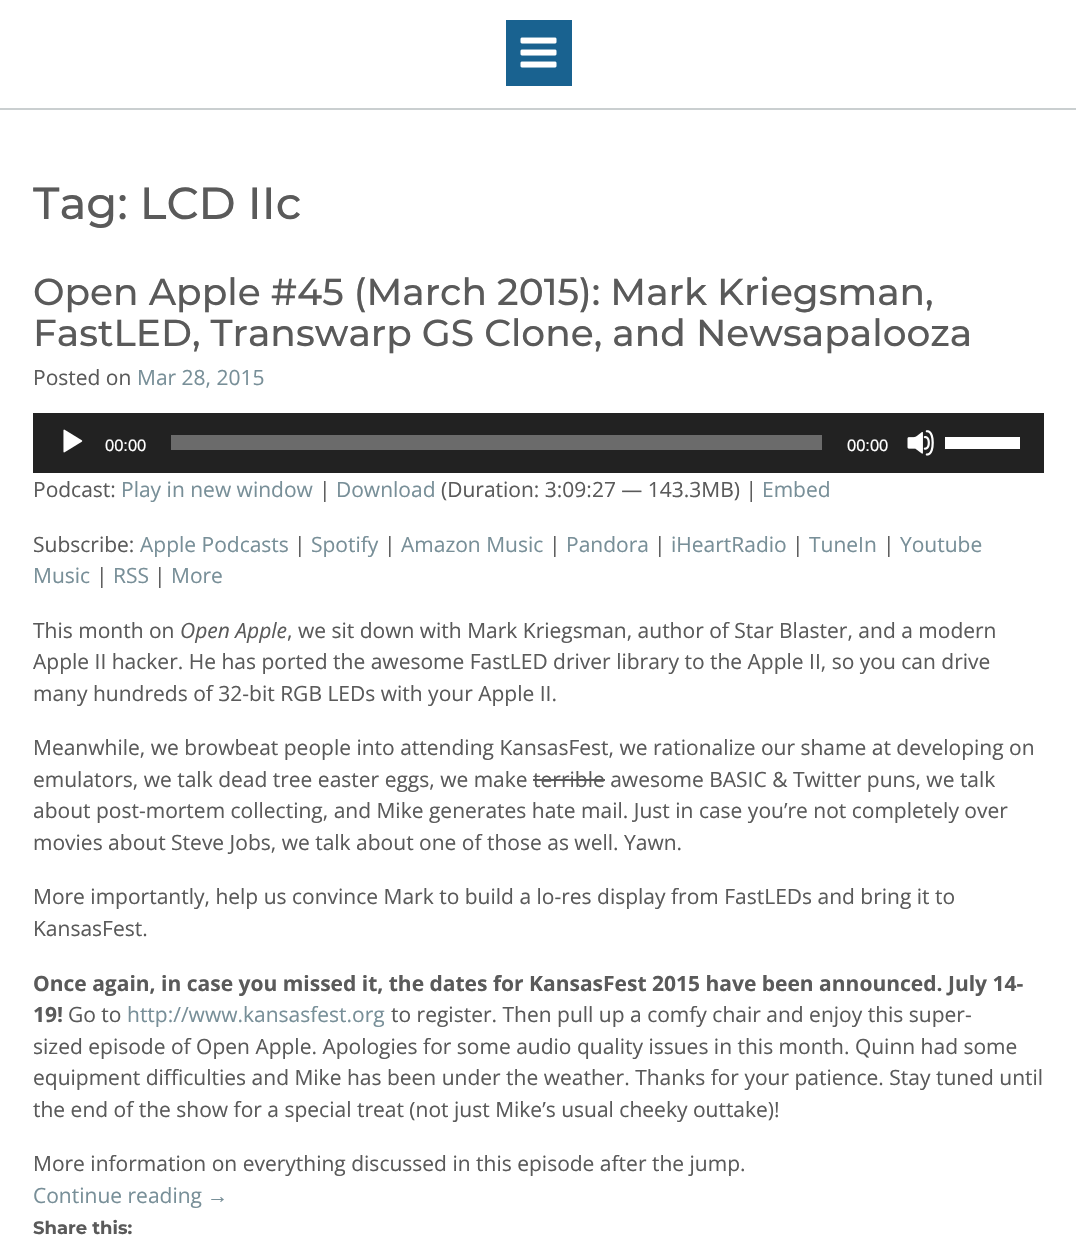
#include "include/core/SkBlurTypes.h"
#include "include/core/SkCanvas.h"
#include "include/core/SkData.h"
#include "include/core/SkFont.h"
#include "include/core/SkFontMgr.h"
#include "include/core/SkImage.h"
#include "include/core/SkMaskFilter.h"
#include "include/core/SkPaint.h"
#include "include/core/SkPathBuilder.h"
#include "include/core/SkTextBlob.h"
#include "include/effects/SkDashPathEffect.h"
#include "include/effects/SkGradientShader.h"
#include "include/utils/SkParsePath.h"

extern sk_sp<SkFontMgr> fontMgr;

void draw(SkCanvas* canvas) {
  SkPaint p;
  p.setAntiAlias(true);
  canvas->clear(SK_ColorWHITE);
  p.setColor(SkColorSetRGB(202, 207, 208));
  canvas->drawRect(SkRect::MakeLTRB(0, 108, 1076, 110), p);
  p.setColor(SkColorSetRGB(25, 98, 144));
  canvas->drawRect(SkRect::MakeLTRB(506, 20, 572, 86), p);
  canvas->drawImageRect(SkImages::DeferredFromEncodedData(SkData::MakeFromFileName("images/1.png")), SkRect::MakeLTRB(520, 37, 557, 68), SkSamplingOptions());
  p.setColor(SkColorSetRGB(34, 34, 34));
  canvas->drawRect(SkRect::MakeLTRB(33, 413, 1044, 473), p);
  canvas->drawImageRect(SkImages::DeferredFromEncodedData(SkData::MakeFromFileName("images/2.png")), SkRect::MakeLTRB(63, 429, 83, 453), SkSamplingOptions());
  p.setColor(SkColorSetRGB(107, 107, 107));
  canvas->drawRect(SkRect::MakeLTRB(171, 435, 822, 450), p);
  canvas->drawImageRect(SkImages::DeferredFromEncodedData(SkData::MakeFromFileName("images/3.png")), SkRect::MakeLTRB(907, 430, 934, 456), SkSamplingOptions());
  p.setColor(SK_ColorWHITE);
  canvas->drawRect(SkRect::MakeLTRB(945, 437, 1020, 449), p);
  p.setColor(SkColorSetRGB(90, 90, 90));
  canvas->drawRect(SkRect::MakeLTRB(533, 779, 605, 781), p);
  SkFont font1(fontMgr->matchFamilyStyle("Montserrat", SkFontStyle(500, SkFontStyle::kNormal_Width, SkFontStyle::kUpright_Slant)), 45);
  font1.setSubpixel(true);
  canvas->drawString("Tag: LCD IIc", 33, 219, font1, p);
  SkFont font2(fontMgr->matchFamilyStyle("Montserrat", SkFontStyle(500, SkFontStyle::kNormal_Width, SkFontStyle::kUpright_Slant)), 37.5f);
  font2.setSubpixel(true);
  canvas->drawString("Open Apple #45 (March 2015): Mark Kriegsman,", 33, 305, font2, p);
  canvas->drawString("FastLED, Transwarp GS Clone, and Newsapalooza", 33, 346, font2, p);
  SkFont font3(fontMgr->matchFamilyStyle("Open Sans", SkFontStyle::Normal()), 21);
  font3.setSubpixel(true);
  canvas->drawString("Posted on", 33, 385, font3, p);
  p.setColor(SkColorSetRGB(120, 143, 152));
  canvas->drawString("Mar 28, 2015", 137, 385, font3, p);
  SkFont font4(fontMgr->matchFamilyStyle("Liberation Sans", SkFontStyle::Normal()), 16.5f);
  font4.setSubpixel(true);
  p.setColor(SK_ColorWHITE);
  canvas->drawString("00:00", 105, 451, font4, p);
  canvas->drawString("00:00", 847, 451, font4, p);
  p.setColor(SkColorSetRGB(90, 90, 90));
  canvas->drawString("Podcast:", 33, 497, font3, p);
  p.setColor(SkColorSetRGB(120, 143, 152));
  canvas->drawString("Play in new window", 121, 497, font3, p);
  p.setColor(SkColorSetRGB(90, 90, 90));
  canvas->drawString("|", 319, 497, font3, p);
  p.setColor(SkColorSetRGB(120, 143, 152));
  canvas->drawString("Download", 336, 497, font3, p);
  p.setColor(SkColorSetRGB(90, 90, 90));
  canvas->drawString("(Duration: 3:09:27 — 143.3MB) |", 441, 497, font3, p);
  p.setColor(SkColorSetRGB(120, 143, 152));
  canvas->drawString("Embed", 762, 497, font3, p);
  p.setColor(SkColorSetRGB(90, 90, 90));
  canvas->drawString("Subscribe:", 33, 552, font3, p);
  p.setColor(SkColorSetRGB(120, 143, 152));
  canvas->drawString("Apple Podcasts", 140, 552, font3, p);
  p.setColor(SkColorSetRGB(90, 90, 90));
  canvas->drawString("|", 294, 552, font3, p);
  p.setColor(SkColorSetRGB(120, 143, 152));
  canvas->drawString("Spotify", 311, 552, font3, p);
  p.setColor(SkColorSetRGB(90, 90, 90));
  canvas->drawString("|", 384, 552, font3, p);
  p.setColor(SkColorSetRGB(120, 143, 152));
  canvas->drawString("Amazon Music", 401, 552, font3, p);
  p.setColor(SkColorSetRGB(90, 90, 90));
  canvas->drawString("|", 549, 552, font3, p);
  p.setColor(SkColorSetRGB(120, 143, 152));
  canvas->drawString("Pandora", 566, 552, font3, p);
  p.setColor(SkColorSetRGB(90, 90, 90));
  canvas->drawString("|", 654, 552, font3, p);
  p.setColor(SkColorSetRGB(120, 143, 152));
  canvas->drawString("iHeartRadio", 671, 552, font3, p);
  p.setColor(SkColorSetRGB(90, 90, 90));
  canvas->drawString("|", 792, 552, font3, p);
  p.setColor(SkColorSetRGB(120, 143, 152));
  canvas->drawString("TuneIn", 809, 552, font3, p);
  p.setColor(SkColorSetRGB(90, 90, 90));
  canvas->drawString("|", 883, 552, font3, p);
  p.setColor(SkColorSetRGB(120, 143, 152));
  canvas->drawString("Youtube", 900, 552, font3, p);
  canvas->drawString("Music", 33, 583, font3, p);
  p.setColor(SkColorSetRGB(90, 90, 90));
  canvas->drawString("|", 96, 583, font3, p);
  p.setColor(SkColorSetRGB(120, 143, 152));
  canvas->drawString("RSS", 113, 583, font3, p);
  p.setColor(SkColorSetRGB(90, 90, 90));
  canvas->drawString("|", 154, 583, font3, p);
  p.setColor(SkColorSetRGB(120, 143, 152));
  canvas->drawString("More", 171, 583, font3, p);
  p.setColor(SkColorSetRGB(90, 90, 90));
  canvas->drawString("This month on", 33, 638, font3, p);
  SkFont font5(fontMgr->matchFamilyStyle("Open Sans", SkFontStyle::Italic()), 21);
  font5.setSubpixel(true);
  canvas->drawString("Open Apple", 180, 638, font5, p);
  canvas->drawString(", we sit down with Mark Kriegsman, author of Star Blaster, and a modern", 287, 638, font3, p);
  canvas->drawString("Apple II hacker. He has ported the awesome FastLED driver library to the Apple II, so you can drive", 33, 669, font3, p);
  canvas->drawString("many hundreds of 32-bit RGB LEDs with your Apple II.", 33, 701, font3, p);
  canvas->drawString("Meanwhile, we browbeat people into attending KansasFest, we rationalize our shame at developing on", 33, 755, font3, p);
  canvas->drawString("emulators, we talk dead tree easter eggs, we make terrible awesome BASIC & Twitter puns, we talk", 33, 787, font3, p);
  canvas->drawString("about post-mortem collecting, and Mike generates hate mail. Just in case you’re not completely over", 33, 818, font3, p);
  canvas->drawString("movies about Steve Jobs, we talk about one of those as well. Yawn.", 33, 850, font3, p);
  canvas->drawString("More importantly, help us convince Mark to build a lo-res display from FastLEDs and bring it to", 33, 904, font3, p);
  canvas->drawString("KansasFest.", 33, 936, font3, p);
  SkFont font6(fontMgr->matchFamilyStyle("Open Sans", SkFontStyle::Bold()), 21);
  font6.setSubpixel(true);
  canvas->drawString("Once again, in case you missed it, the dates for KansasFest 2015 have been announced. July 14-", 33, 991, font6, p);
  canvas->drawString("19!", 33, 1022, font6, p);
  canvas->drawString("Go to", 68, 1022, font3, p);
  p.setColor(SkColorSetRGB(120, 143, 152));
  canvas->drawString("http://www.kansasfest.org", 127, 1022, font3, p);
  p.setColor(SkColorSetRGB(90, 90, 90));
  canvas->drawString("to register. Then pull up a comfy chair and enjoy this super-", 391, 1022, font3, p);
  canvas->drawString("sized episode of Open Apple. Apologies for some audio quality issues in this month. Quinn had some", 33, 1054, font3, p);
  canvas->drawString("equipment difficulties and Mike has been under the weather. Thanks for your patience. Stay tuned until", 33, 1085, font3, p);
  canvas->drawString("the end of the show for a special treat (not just Mike’s usual cheeky outtake)!", 33, 1117, font3, p);
  canvas->drawString("More information on everything discussed in this episode after the jump.", 33, 1171, font3, p);
  p.setColor(SkColorSetRGB(120, 143, 152));
  canvas->drawString("Continue reading", 33, 1203, font3, p);
  SkFont font7(fontMgr->matchFamilyStyle("Liberation Sans", SkFontStyle::Normal()), 21);
  font7.setSubpixel(true);
  canvas->drawString("→", 207, 1203, font7, p);
  SkFont font8(fontMgr->matchFamilyStyle("Montserrat", SkFontStyle::Bold()), 18);
  font8.setSubpixel(true);
  p.setColor(SkColorSetRGB(90, 90, 90));
  canvas->drawString("Share this:", 33, 1234, font8, p);
}
